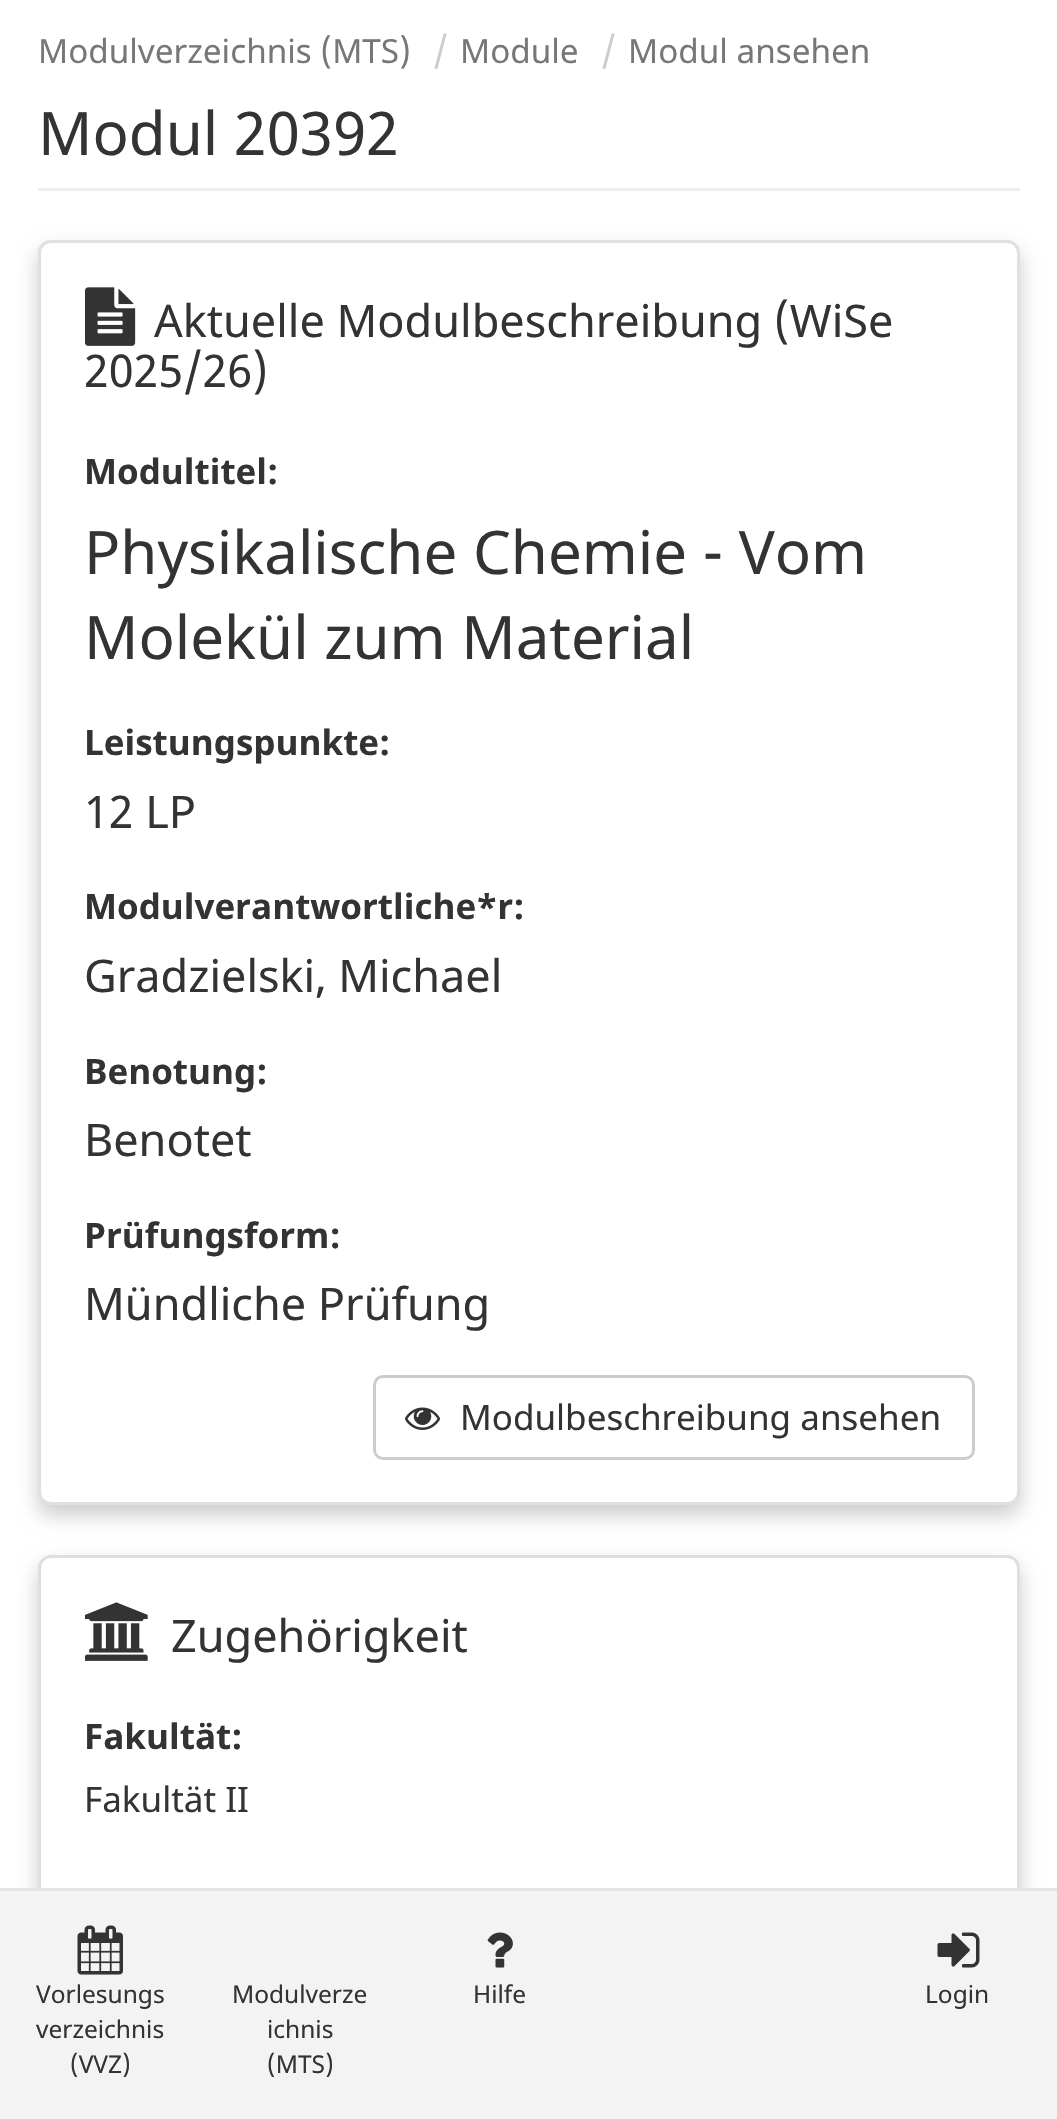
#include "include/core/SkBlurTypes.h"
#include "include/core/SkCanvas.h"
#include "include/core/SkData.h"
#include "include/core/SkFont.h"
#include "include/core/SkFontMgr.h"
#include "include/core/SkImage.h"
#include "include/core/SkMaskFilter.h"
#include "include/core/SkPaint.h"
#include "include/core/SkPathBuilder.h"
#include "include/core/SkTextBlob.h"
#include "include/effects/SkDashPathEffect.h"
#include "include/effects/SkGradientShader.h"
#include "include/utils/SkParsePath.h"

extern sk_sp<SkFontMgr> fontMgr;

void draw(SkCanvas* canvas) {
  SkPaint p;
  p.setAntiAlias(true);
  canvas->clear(SK_ColorWHITE);
  p.setColor(SkColorSetRGB(238, 238, 238));
  canvas->drawRect(SkRect::MakeLTRB(38, 188, 1020, 191), p);
  canvas->save();
  canvas->clipPath(SkPathBuilder(SkPathFillType::kEvenOdd).moveTo(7, 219).lineTo(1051, 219).lineTo(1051, 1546).lineTo(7, 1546).close().moveTo(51, 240).lineTo(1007, 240).cubicTo(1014, 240, 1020, 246, 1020, 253).lineTo(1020, 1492).cubicTo(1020, 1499, 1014, 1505, 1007, 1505).lineTo(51, 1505).cubicTo(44, 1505, 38, 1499, 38, 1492).lineTo(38, 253).cubicTo(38, 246, 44, 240, 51, 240).close().detach(), true);
  p.setColor(SkColorSetARGB(51, 0, 0, 0));
  p.setMaskFilter(SkMaskFilter::MakeBlur(kNormal_SkBlurStyle, 10));
  canvas->drawRoundRect(SkRect::MakeLTRB(38, 250, 1020, 1515), 13, 13, p);
  p.setMaskFilter(nullptr);
  canvas->restore();
  p.setStyle(SkPaint::kStroke_Style);
  p.setStrokeWidth(3);
  p.setColor(SkColorSetARGB(31, 0, 0, 0));
  canvas->drawRoundRect(SkRect::MakeLTRB(39.5f, 241.5f, 1018.5f, 1503.5f), 11.5f, 11.5f, p);
  canvas->drawImageRect(SkImages::DeferredFromEncodedData(SkData::MakeFromFileName("images/1.png")), SkRect::MakeLTRB(85, 287, 136, 346), SkSamplingOptions());
  p.setColor(SkColorSetRGB(204, 204, 204));
  canvas->drawRoundRect(SkRect::MakeLTRB(374.5f, 1376.5f, 973.5f, 1458.5f), 8.5f, 8.5f, p);
  canvas->drawImageRect(SkImages::DeferredFromEncodedData(SkData::MakeFromFileName("images/2.png")), SkRect::MakeLTRB(405, 1407, 440, 1430), SkSamplingOptions());
  canvas->save();
  canvas->clipPath(SkPathBuilder(SkPathFillType::kEvenOdd).moveTo(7, 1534).lineTo(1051, 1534).lineTo(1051, 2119).lineTo(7, 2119).close().moveTo(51, 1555).lineTo(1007, 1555).cubicTo(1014, 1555, 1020, 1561, 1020, 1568).lineTo(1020, 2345).cubicTo(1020, 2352, 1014, 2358, 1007, 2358).lineTo(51, 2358).cubicTo(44, 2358, 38, 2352, 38, 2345).lineTo(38, 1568).cubicTo(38, 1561, 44, 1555, 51, 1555).close().detach(), true);
  p.setStyle(SkPaint::kFill_Style);
  p.setColor(SkColorSetARGB(51, 0, 0, 0));
  p.setMaskFilter(SkMaskFilter::MakeBlur(kNormal_SkBlurStyle, 10));
  canvas->drawRoundRect(SkRect::MakeLTRB(38, 1565, 1020, 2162), 13, 13, p);
  p.setMaskFilter(nullptr);
  canvas->restore();
  p.setStyle(SkPaint::kStroke_Style);
  p.setColor(SkColorSetRGB(223, 223, 223));
  canvas->drawRoundRect(SkRect::MakeLTRB(39.5f, 1556.5f, 1018.5f, 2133.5f), 11.5f, 11.5f, p);
  canvas->drawImageRect(SkImages::DeferredFromEncodedData(SkData::MakeFromFileName("images/3.png")), SkRect::MakeLTRB(85, 1602, 148, 1661), SkSamplingOptions());
  p.setStyle(SkPaint::kFill_Style);
  p.setColor(SkColorSetRGB(243, 243, 243));
  canvas->drawRect(SkRect::MakeLTRB(0, 1891, 1057, 2119), p);
  p.setColor(SkColorSetRGB(229, 229, 229));
  canvas->drawRect(SkRect::MakeLTRB(0, 1888, 1057, 1891), p);
  canvas->drawImageRect(SkImages::DeferredFromEncodedData(SkData::MakeFromFileName("images/4.png")), SkRect::MakeLTRB(77, 1925, 123, 1975), SkSamplingOptions());
  canvas->drawImageRect(SkImages::DeferredFromEncodedData(SkData::MakeFromFileName("images/5.png")), SkRect::MakeLTRB(487, 1932, 513, 1968), SkSamplingOptions());
  canvas->drawImageRect(SkImages::DeferredFromEncodedData(SkData::MakeFromFileName("images/6.png")), SkRect::MakeLTRB(937, 1932, 980, 1968), SkSamplingOptions());
  SkFont font1(fontMgr->matchFamilyStyle("Noto Sans", SkFontStyle::Normal()), 33.25f);
  font1.setSubpixel(true);
  p.setColor(SkColorSetRGB(119, 119, 119));
  canvas->drawString("Modulverzeichnis (MTS)", 38, 63, font1, p);
  SkFont font2(fontMgr->matchFamilyStyle("Noto Sans", SkFontStyle::Normal()), 35);
  font2.setSubpixel(true);
  p.setColor(SkColorSetRGB(204, 204, 204));
  canvas->drawString("/", 433, 63, font2, p);
  p.setColor(SkColorSetRGB(119, 119, 119));
  canvas->drawString("Module", 460, 63, font1, p);
  p.setColor(SkColorSetRGB(204, 204, 204));
  canvas->drawString("/", 601, 63, font2, p);
  p.setColor(SkColorSetRGB(119, 119, 119));
  canvas->drawString("Modul ansehen", 628, 63, font1, p);
  SkFont font3(fontMgr->matchFamilyStyle("Noto Sans", SkFontStyle::Normal()), 60);
  font3.setSubpixel(true);
  p.setColor(SkColorSetRGB(51, 51, 51));
  canvas->drawString("Modul 20392", 38, 155, font3, p);
  SkFont font4(fontMgr->matchFamilyStyle("Noto Sans", SkFontStyle::Normal()), 45);
  font4.setSubpixel(true);
  canvas->drawString("Aktuelle Modulbeschreibung (WiSe", 154, 337, font4, p);
  canvas->drawString("2025/26)", 84, 387, font4, p);
  SkFont font5(fontMgr->matchFamilyStyle("Noto Sans", SkFontStyle::Bold()), 35);
  font5.setSubpixel(true);
  canvas->drawString("Modultitel:", 84, 484, font5, p);
  canvas->drawString("Physikalische Chemie - Vom", 84, 574, font3, p);
  canvas->drawString("Molekül zum Material", 84, 659, font3, p);
  canvas->drawString("Leistungspunkte:", 84, 755, font5, p);
  canvas->drawString("12 LP", 84, 828, font4, p);
  canvas->drawString("Modulverantwortliche*r:", 84, 919, font5, p);
  canvas->drawString("Gradzielski, Michael", 84, 992, font4, p);
  canvas->drawString("Benotung:", 84, 1084, font5, p);
  canvas->drawString("Benotet", 84, 1156, font4, p);
  canvas->drawString("Prüfungsform:", 84, 1248, font5, p);
  canvas->drawString("Mündliche Prüfung", 84, 1320, font4, p);
  canvas->drawString("Modulbeschreibung ansehen", 460, 1430, font2, p);
  canvas->drawString("Zugehörigkeit", 171, 1652, font4, p);
  canvas->drawString("Fakultät:", 84, 1749, font5, p);
  canvas->drawString("Fakultät II", 84, 1812, font2, p);
  SkFont font6(fontMgr->matchFamilyStyle("Noto Sans", SkFontStyle::Normal()), 24.5f);
  font6.setSubpixel(true);
  canvas->drawString("Vorlesungs", 36, 2003, font6, p);
  canvas->drawString("verzeichnis", 36, 2038, font6, p);
  canvas->drawString("(VVZ)", 70, 2073, font6, p);
  canvas->drawString("Modulverze", 232, 2003, font6, p);
  canvas->drawString("ichnis", 267, 2038, font6, p);
  canvas->drawString("(MTS)", 267, 2073, font6, p);
  canvas->drawString("Hilfe", 473, 2003, font6, p);
  canvas->drawString("Login", 925, 2003, font6, p);
}
